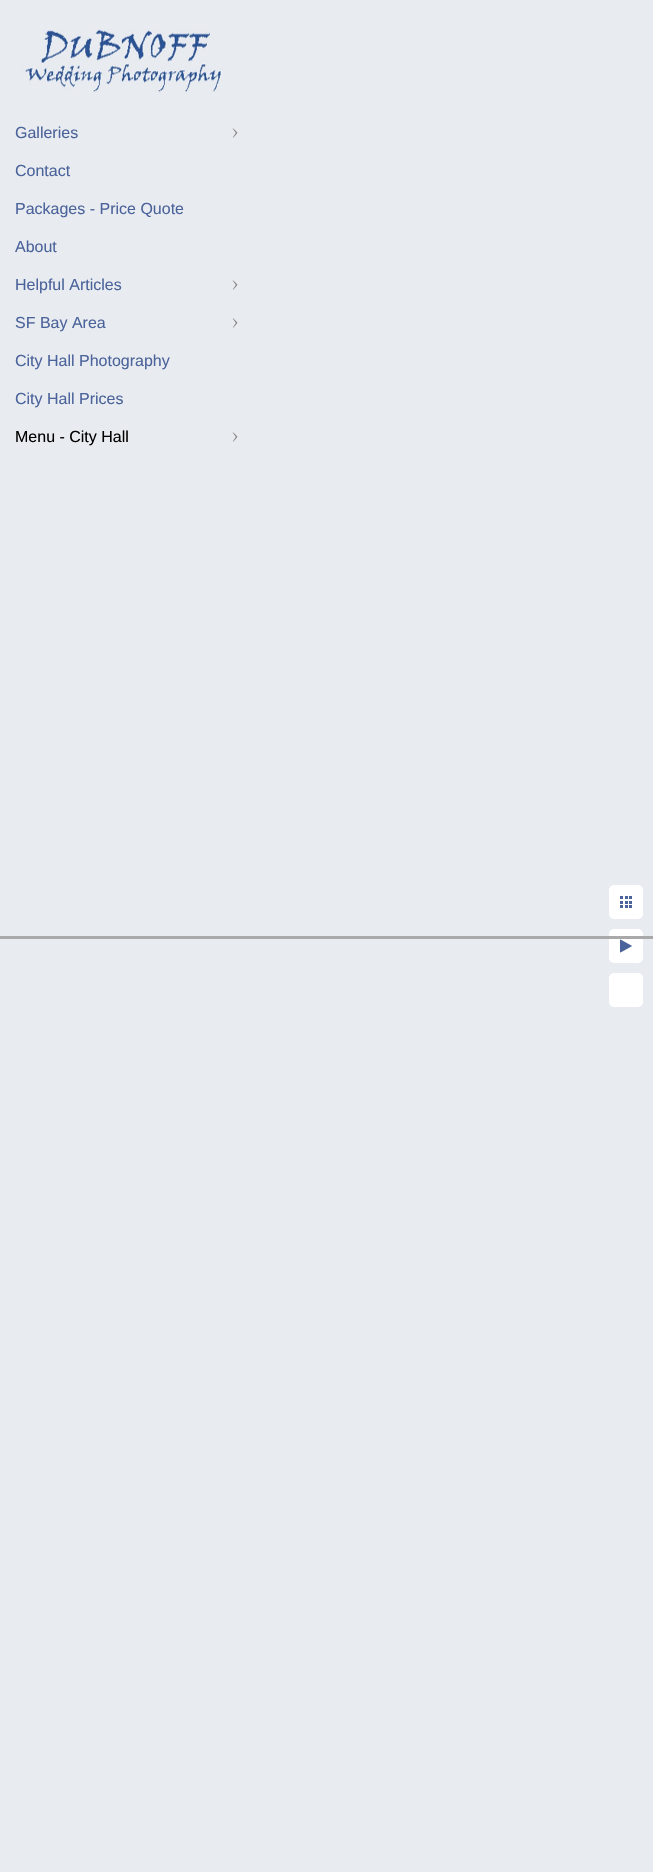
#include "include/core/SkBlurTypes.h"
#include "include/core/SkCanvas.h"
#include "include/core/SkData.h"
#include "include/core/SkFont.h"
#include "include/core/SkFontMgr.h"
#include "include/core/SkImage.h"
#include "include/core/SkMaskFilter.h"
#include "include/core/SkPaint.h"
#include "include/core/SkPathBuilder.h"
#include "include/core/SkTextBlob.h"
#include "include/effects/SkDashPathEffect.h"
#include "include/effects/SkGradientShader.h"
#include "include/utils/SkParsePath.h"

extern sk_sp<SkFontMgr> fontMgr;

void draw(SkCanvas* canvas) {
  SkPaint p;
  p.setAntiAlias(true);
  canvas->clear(SkColorSetRGB(232, 235, 240));
  canvas->drawImageRect(SkImages::DeferredFromEncodedData(SkData::MakeFromFileName("images/1.png")), SkRect::MakeLTRB(20, 29, 225, 93), SkSamplingOptions());
  canvas->drawImageRect(SkImages::DeferredFromEncodedData(SkData::MakeFromFileName("images/2.png")), SkRect::MakeLTRB(232, 128, 238, 138), SkSamplingOptions());
  canvas->drawImageRect(SkImages::DeferredFromEncodedData(SkData::MakeFromFileName("images/2.png")), SkRect::MakeLTRB(232, 280, 238, 290), SkSamplingOptions());
  canvas->drawImageRect(SkImages::DeferredFromEncodedData(SkData::MakeFromFileName("images/2.png")), SkRect::MakeLTRB(232, 318, 238, 328), SkSamplingOptions());
  canvas->drawImageRect(SkImages::DeferredFromEncodedData(SkData::MakeFromFileName("images/2.png")), SkRect::MakeLTRB(232, 432, 238, 442), SkSamplingOptions());
  p.setColor(SK_ColorWHITE);
  canvas->drawRoundRect(SkRect::MakeLTRB(609, 885, 643, 919), 5, 5, p);
  canvas->drawImageRect(SkImages::DeferredFromEncodedData(SkData::MakeFromFileName("images/3.png")), SkRect::MakeLTRB(620, 896, 632, 908), SkSamplingOptions());
  canvas->drawRoundRect(SkRect::MakeLTRB(609, 929, 643, 963), 5, 5, p);
  canvas->drawImageRect(SkImages::DeferredFromEncodedData(SkData::MakeFromFileName("images/4.png")), SkRect::MakeLTRB(620, 939, 632, 953), SkSamplingOptions());
  canvas->drawRoundRect(SkRect::MakeLTRB(609, 973, 643, 1007), 5, 5, p);
  p.setColor(SkColorSetRGB(169, 169, 169));
  canvas->drawRect(SkRect::MakeLTRB(0, 936, 653, 939), p);
  SkFont font1(fontMgr->matchFamilyStyle("Liberation Sans", SkFontStyle::Normal()), 16);
  font1.setSubpixel(true);
  p.setColor(SkColorSetRGB(75, 99, 155));
  canvas->drawString("Galleries", 15, 138, font1, p);
  canvas->drawString("Contact", 15, 176, font1, p);
  canvas->drawString("Packages - Price Quote", 15, 214, font1, p);
  canvas->drawString("About", 15, 252, font1, p);
  canvas->drawString("Helpful Articles", 15, 290, font1, p);
  canvas->drawString("SF Bay Area", 15, 328, font1, p);
  canvas->drawString("City Hall Photography", 15, 366, font1, p);
  canvas->drawString("City Hall Prices", 15, 404, font1, p);
  p.setColor(SK_ColorBLACK);
  canvas->drawString("Menu - City Hall", 15, 442, font1, p);
}
